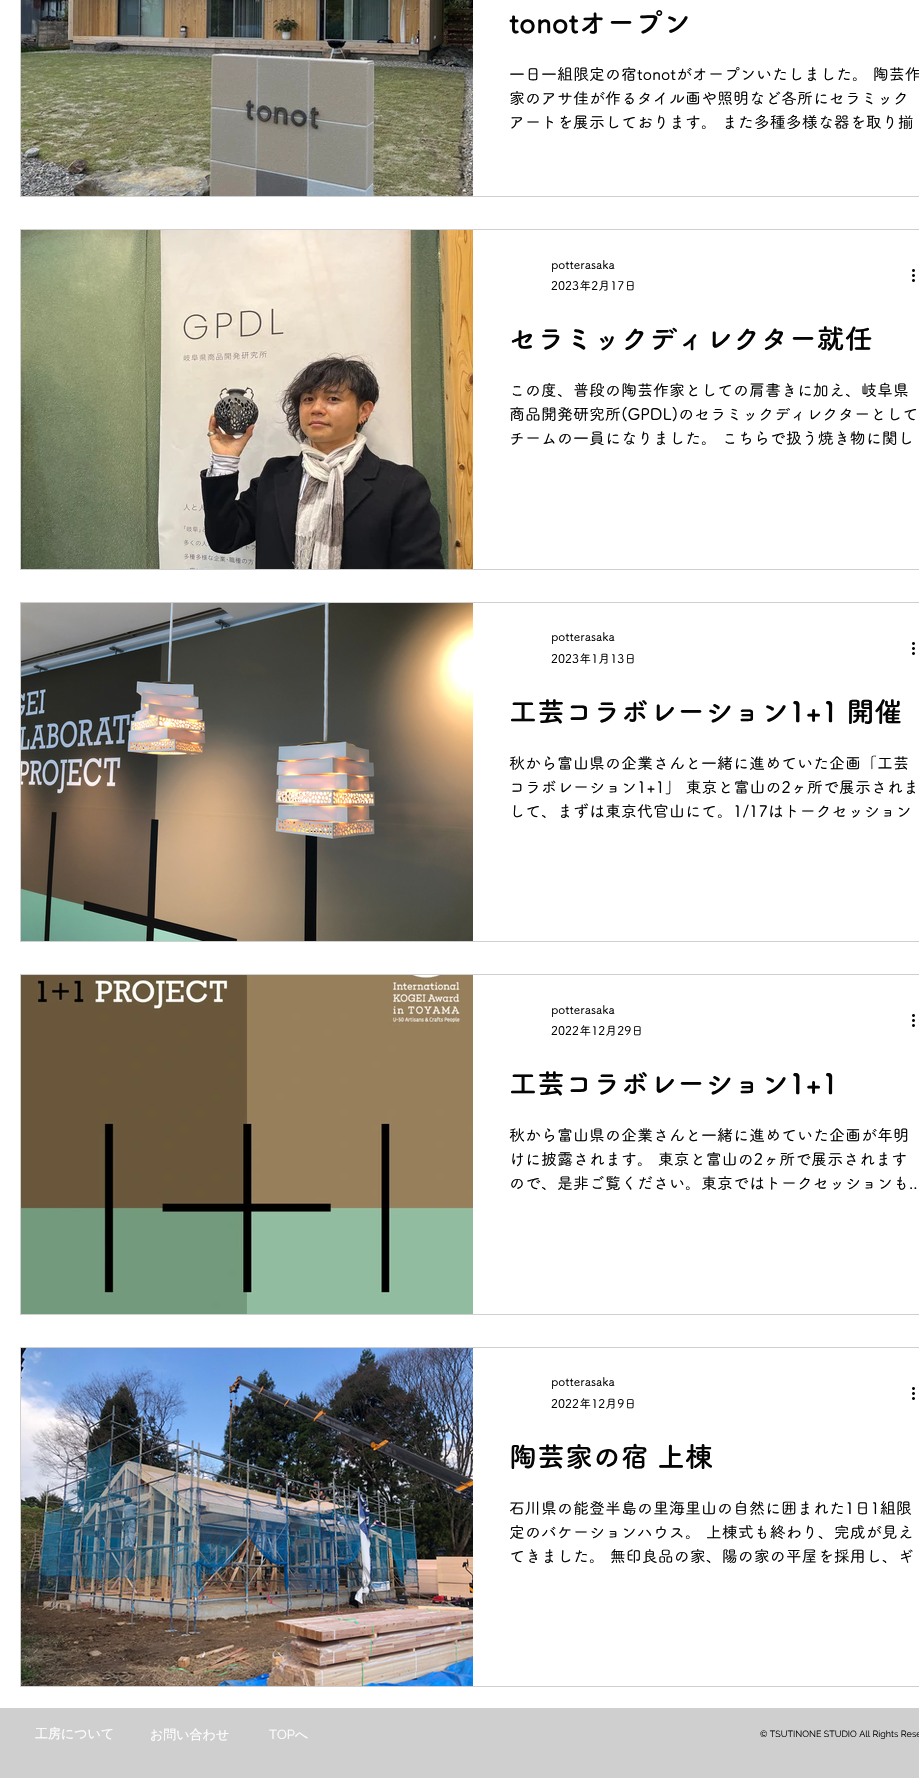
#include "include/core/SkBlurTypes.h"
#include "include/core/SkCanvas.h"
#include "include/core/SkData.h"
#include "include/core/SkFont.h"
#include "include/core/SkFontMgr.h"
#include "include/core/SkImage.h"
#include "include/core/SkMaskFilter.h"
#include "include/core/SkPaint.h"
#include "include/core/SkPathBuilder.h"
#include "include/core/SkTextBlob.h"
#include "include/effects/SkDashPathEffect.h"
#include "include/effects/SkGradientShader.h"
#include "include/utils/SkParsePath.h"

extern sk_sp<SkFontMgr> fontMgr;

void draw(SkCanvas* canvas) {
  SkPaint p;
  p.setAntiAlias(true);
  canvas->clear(SK_ColorWHITE);
  p.setStyle(SkPaint::kStroke_Style);
  p.setStrokeWidth(1);
  p.setColor(SkColorSetRGB(207, 207, 207));
  canvas->drawRect(SkRect::MakeLTRB(20.5f, -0.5f, 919.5f, 196.5f), p);
  canvas->drawImageRect(SkImages::DeferredFromEncodedData(SkData::MakeFromFileName("images/1.png")), SkRect::MakeLTRB(21, 0, 473, 196), SkSamplingOptions());
  canvas->drawRect(SkRect::MakeLTRB(20.5f, 229.5f, 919.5f, 569.5f), p);
  canvas->drawImageRect(SkImages::DeferredFromEncodedData(SkData::MakeFromFileName("images/2.png")), SkRect::MakeLTRB(21, 230, 473, 569), SkSamplingOptions());
  canvas->drawImageRect(SkImages::DeferredFromEncodedData(SkData::MakeFromFileName("images/3.png")), SkRect::MakeLTRB(912, 269, 915, 282), SkSamplingOptions());
  canvas->drawRect(SkRect::MakeLTRB(20.5f, 602.5f, 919.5f, 941.5f), p);
  canvas->drawImageRect(SkImages::DeferredFromEncodedData(SkData::MakeFromFileName("images/4.png")), SkRect::MakeLTRB(21, 603, 473, 941), SkSamplingOptions());
  canvas->drawImageRect(SkImages::DeferredFromEncodedData(SkData::MakeFromFileName("images/3.png")), SkRect::MakeLTRB(912, 642, 915, 655), SkSamplingOptions());
  canvas->drawRect(SkRect::MakeLTRB(20.5f, 974.5f, 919.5f, 1314.5f), p);
  canvas->drawImageRect(SkImages::DeferredFromEncodedData(SkData::MakeFromFileName("images/5.png")), SkRect::MakeLTRB(21, 975, 473, 1314), SkSamplingOptions());
  canvas->drawImageRect(SkImages::DeferredFromEncodedData(SkData::MakeFromFileName("images/3.png")), SkRect::MakeLTRB(912, 1014, 915, 1027), SkSamplingOptions());
  canvas->drawRect(SkRect::MakeLTRB(20.5f, 1347.5f, 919.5f, 1686.5f), p);
  canvas->drawImageRect(SkImages::DeferredFromEncodedData(SkData::MakeFromFileName("images/6.png")), SkRect::MakeLTRB(21, 1348, 473, 1686), SkSamplingOptions());
  canvas->drawImageRect(SkImages::DeferredFromEncodedData(SkData::MakeFromFileName("images/3.png")), SkRect::MakeLTRB(912, 1387, 915, 1400), SkSamplingOptions());
  p.setStyle(SkPaint::kFill_Style);
  canvas->drawRect(SkRect::MakeLTRB(0, 1708, 919, 1778), p);
  SkFont font1(fontMgr->matchFamilyStyle("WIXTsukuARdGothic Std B", SkFontStyle::Bold()), 28);
  font1.setSubpixel(true);
  p.setColor(SkColorSetRGB(5, 5, 5));
  canvas->drawString("tonotオープン", 509, 33, font1, p);
  SkFont font2(fontMgr->matchFamilyStyle("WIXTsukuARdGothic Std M", SkFontStyle(500, SkFontStyle::kNormal_Width, SkFontStyle::kUpright_Slant)), 16);
  font2.setSubpixel(true);
  canvas->drawString("一日一組限定の宿tonotがオープンいたしました。 陶芸作", 509, 80, font2, p);
  canvas->drawString("家のアサ佳が作るタイル画や照明など各所にセラミック", 509, 104, font2, p);
  canvas->drawString("アートを展示しております。 また多種多様な器を取り揃", 509, 128, font2, p);
  SkFont font3(fontMgr->matchFamilyStyle("WIXTsukuARdGothic Std M", SkFontStyle(500, SkFontStyle::kNormal_Width, SkFontStyle::kUpright_Slant)), 12);
  font3.setSubpixel(true);
  canvas->drawString("potterasaka", 551, 269, font3, p);
  canvas->drawString("2023年2月17日", 551, 290, font3, p);
  canvas->drawString("セラミックディレクター就任", 509, 349, font1, p);
  canvas->drawString("この度、普段の陶芸作家としての肩書きに加え、岐阜県", 509, 396, font2, p);
  canvas->drawString("商品開発研究所(GPDL)のセラミックディレクターとして", 509, 420, font2, p);
  canvas->drawString("チームの一員になりました。 こちらで扱う焼き物に関し", 509, 444, font2, p);
  canvas->drawString("potterasaka", 551, 641, font3, p);
  canvas->drawString("2023年1月13日", 551, 663, font3, p);
  canvas->drawString("工芸コラボレーション1+1 開催", 509, 722, font1, p);
  canvas->drawString("秋から富山県の企業さんと一緒に進めていた企画「工芸", 509, 769, font2, p);
  canvas->drawString("コラボレーション1+1」 東京と富山の2ヶ所で展示されま", 509, 793, font2, p);
  canvas->drawString("して、まずは東京代官山にて。1/17はトークセッション", 509, 817, font2, p);
  canvas->drawString("potterasaka", 551, 1014, font3, p);
  canvas->drawString("2022年12月29日", 551, 1035, font3, p);
  canvas->drawString("工芸コラボレーション1+1", 509, 1094, font1, p);
  canvas->drawString("秋から富山県の企業さんと一緒に進めていた企画が年明", 509, 1141, font2, p);
  canvas->drawString("けに披露されます。 東京と富山の2ヶ所で展示されます", 509, 1165, font2, p);
  canvas->drawString("ので、是非ご覧ください。東京ではトークセッションも..", 509, 1189, font2, p);
  canvas->drawString("potterasaka", 551, 1386, font3, p);
  canvas->drawString("2022年12月9日", 551, 1408, font3, p);
  canvas->drawString("陶芸家の宿 上棟", 509, 1467, font1, p);
  canvas->drawString("石川県の能登半島の里海里山の自然に囲まれた1日1組限", 509, 1514, font2, p);
  canvas->drawString("定のバケーションハウス。 上棟式も終わり、完成が見え", 509, 1538, font2, p);
  canvas->drawString("てきました。 無印良品の家、陽の家の平屋を採用し、ギ", 509, 1562, font2, p);
  SkFont font4(fontMgr->matchFamilyStyle("WenQuanYi Zen Hei", SkFontStyle(500, SkFontStyle::kNormal_Width, SkFontStyle::kUpright_Slant)), 13);
  font4.setSubpixel(true);
  p.setColor(SK_ColorWHITE);
  canvas->drawString("工房について", 35, 1738, font4, p);
  canvas->drawString("お問い合わせ", 150, 1739, font4, p);
  SkFont font5(fontMgr->matchFamilyStyle("Raleway", SkFontStyle::Normal()), 13);
  font5.setSubpixel(true);
  canvas->drawString("TOP", 269, 1739, font5, p);
  canvas->drawString("へ", 295, 1739, font4, p);
  SkFont font6(fontMgr->matchFamilyStyle("Raleway", SkFontStyle::Normal()), 9);
  font6.setSubpixel(true);
  p.setColor(SkColorSetRGB(5, 5, 5));
  canvas->drawString("© TSUTINONE STUDIO All Rights Rese", 760, 1737, font6, p);
}
